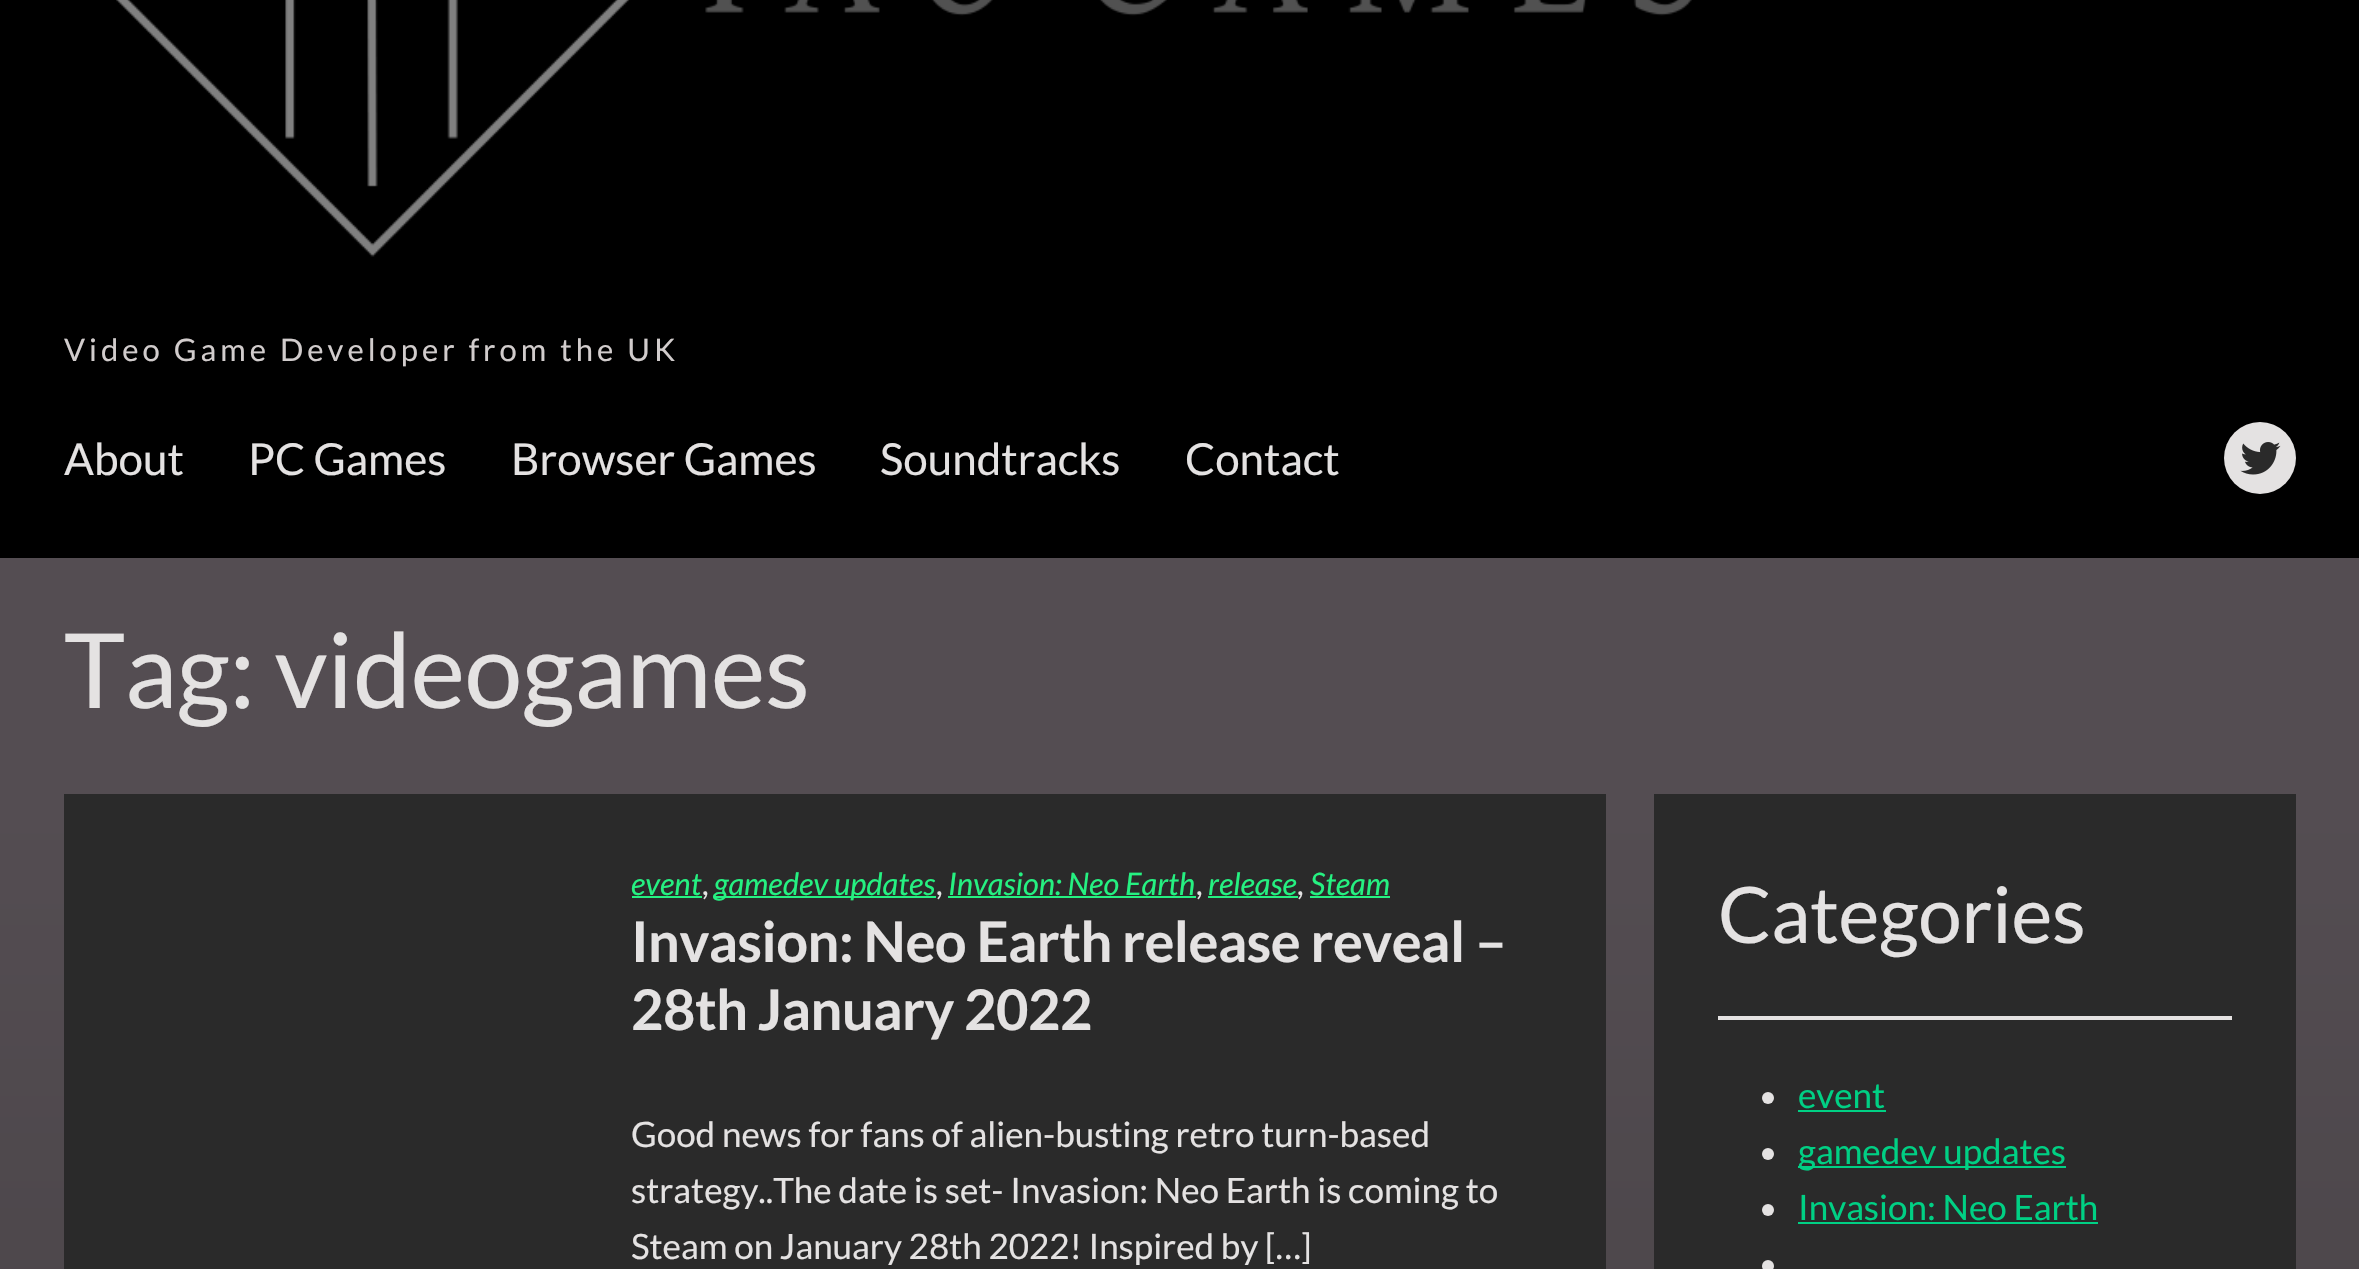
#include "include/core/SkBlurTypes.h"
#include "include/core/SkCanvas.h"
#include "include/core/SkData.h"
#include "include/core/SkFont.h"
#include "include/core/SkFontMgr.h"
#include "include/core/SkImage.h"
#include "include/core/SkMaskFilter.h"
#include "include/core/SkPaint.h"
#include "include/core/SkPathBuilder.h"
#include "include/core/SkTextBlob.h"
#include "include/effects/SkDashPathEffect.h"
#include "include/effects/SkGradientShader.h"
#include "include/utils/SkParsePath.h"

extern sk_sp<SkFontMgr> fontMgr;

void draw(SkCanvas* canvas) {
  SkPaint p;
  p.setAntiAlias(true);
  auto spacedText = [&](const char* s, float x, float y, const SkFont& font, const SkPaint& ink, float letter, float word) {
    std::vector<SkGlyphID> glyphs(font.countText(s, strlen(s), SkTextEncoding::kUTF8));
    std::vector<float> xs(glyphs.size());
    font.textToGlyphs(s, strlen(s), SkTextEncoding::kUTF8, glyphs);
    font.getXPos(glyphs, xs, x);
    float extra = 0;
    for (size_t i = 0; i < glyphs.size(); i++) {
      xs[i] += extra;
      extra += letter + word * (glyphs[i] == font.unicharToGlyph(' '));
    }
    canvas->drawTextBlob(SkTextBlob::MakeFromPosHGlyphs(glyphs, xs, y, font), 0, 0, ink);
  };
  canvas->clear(SK_ColorWHITE);
  {
    const SkColor colors[] = {SkColorSetRGB(42, 42, 42), SkColorSetRGB(84, 77, 82), SkColorSetRGB(84, 77, 82), SkColorSetRGB(42, 42, 42)};
    const float stops[] = {0, 0, 0.3f, 1};
    const SkPoint ends[] = {{1180, -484}, {1180, 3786}};
    p.setShader(SkGradientShader::MakeLinear(ends, colors, stops, 4, SkTileMode::kClamp));
    p.setAlpha(255);
  }
  canvas->drawRect(SkRect::MakeLTRB(0, 558, 2359, 1269), p);
  p.setShader(nullptr);
  p.setColor(SK_ColorBLACK);
  canvas->drawRect(SkRect::MakeLTRB(0, 0, 2359, 558), p);
  canvas->drawImageRect(SkImages::DeferredFromEncodedData(SkData::MakeFromFileName("images/1.png")), SkRect::MakeLTRB(116, 0, 1692, 257), SkSamplingOptions());
  p.setColor(SkColorSetRGB(228, 226, 226));
  canvas->drawCircle(2260, 458, 36, p);
  canvas->drawImageRect(SkImages::DeferredFromEncodedData(SkData::MakeFromFileName("images/2.png")), SkRect::MakeLTRB(2240, 442, 2281, 475), SkSamplingOptions());
  p.setColor(SkColorSetRGB(42, 42, 42));
  canvas->drawRect(SkRect::MakeLTRB(64, 794, 1606, 1269), p);
  p.setColor(SkColorSetRGB(37, 241, 129));
  canvas->drawRect(SkRect::MakeLTRB(632, 896, 702, 898), p);
  canvas->drawRect(SkRect::MakeLTRB(714, 896, 936, 898), p);
  canvas->drawRect(SkRect::MakeLTRB(948, 896, 1196, 898), p);
  canvas->drawRect(SkRect::MakeLTRB(1208, 896, 1298, 898), p);
  canvas->drawRect(SkRect::MakeLTRB(1310, 896, 1390, 898), p);
  p.setColor(SkColorSetRGB(42, 42, 42));
  canvas->drawRect(SkRect::MakeLTRB(1654, 794, 2296, 1269), p);
  p.setColor(SkColorSetRGB(228, 226, 226));
  canvas->drawRect(SkRect::MakeLTRB(1718, 1016, 2232, 1020), p);
  canvas->drawCircle(1768, 1098, 6, p);
  p.setColor(SkColorSetRGB(0, 208, 132));
  canvas->drawRect(SkRect::MakeLTRB(1798, 1110, 1886, 1112), p);
  p.setColor(SkColorSetRGB(228, 226, 226));
  canvas->drawCircle(1768, 1154, 6, p);
  p.setColor(SkColorSetRGB(0, 208, 132));
  canvas->drawRect(SkRect::MakeLTRB(1798, 1166, 2066, 1168), p);
  p.setColor(SkColorSetRGB(228, 226, 226));
  canvas->drawCircle(1768, 1210, 6, p);
  p.setColor(SkColorSetRGB(0, 208, 132));
  canvas->drawRect(SkRect::MakeLTRB(1798, 1222, 2098, 1224), p);
  p.setColor(SkColorSetRGB(228, 226, 226));
  canvas->drawCircle(1768, 1266, 6, p);
  SkFont font1(fontMgr->matchFamilyStyle("Lato", SkFontStyle::Normal()), 31);
  font1.setSubpixel(true);
  p.setColor(SkColorSetRGB(209, 204, 204));
  spacedText("Video Game Developer from the UK", 64, 361, font1, p, 4, 0);
  SkFont font2(fontMgr->matchFamilyStyle("Lato", SkFontStyle::Normal()), 44);
  font2.setSubpixel(true);
  p.setColor(SkColorSetRGB(228, 226, 226));
  canvas->drawString("About", 64, 475, font2, p);
  canvas->drawString("PC Games", 248, 475, font2, p);
  canvas->drawString("Browser Games", 511, 475, font2, p);
  canvas->drawString("Soundtracks", 880, 475, font2, p);
  canvas->drawString("Contact", 1185, 475, font2, p);
  SkFont font3(fontMgr->matchFamilyStyle("Lato", SkFontStyle::Normal()), 103.75f);
  font3.setSubpixel(true);
  spacedText("Tag: videogames", 64, 708, font3, p, -0.5f, 0);
  SkFont font4(fontMgr->matchFamilyStyle("Lato", SkFontStyle::Italic()), 31);
  font4.setSubpixel(true);
  p.setColor(SkColorSetRGB(37, 241, 129));
  canvas->drawString("event", 631, 895, font4, p);
  p.setColor(SkColorSetRGB(228, 226, 226));
  canvas->drawString(",", 702, 895, font1, p);
  p.setColor(SkColorSetRGB(37, 241, 129));
  canvas->drawString("gamedev updates", 714, 895, font4, p);
  p.setColor(SkColorSetRGB(228, 226, 226));
  canvas->drawString(",", 936, 895, font1, p);
  p.setColor(SkColorSetRGB(37, 241, 129));
  canvas->drawString("Invasion: Neo Earth", 948, 895, font4, p);
  p.setColor(SkColorSetRGB(228, 226, 226));
  canvas->drawString(",", 1196, 895, font1, p);
  p.setColor(SkColorSetRGB(37, 241, 129));
  canvas->drawString("release", 1208, 895, font4, p);
  p.setColor(SkColorSetRGB(228, 226, 226));
  canvas->drawString(",", 1297, 895, font1, p);
  p.setColor(SkColorSetRGB(37, 241, 129));
  canvas->drawString("Steam", 1310, 895, font4, p);
  SkFont font5(fontMgr->matchFamilyStyle("Lato", SkFontStyle::Bold()), 56);
  font5.setSubpixel(true);
  p.setColor(SkColorSetRGB(228, 226, 226));
  spacedText("Invasion: Neo Earth release reveal –", 631, 962, font5, p, -0.5f, 0);
  spacedText("28th January 2022", 631, 1030, font5, p, -0.5f, 0);
  SkFont font6(fontMgr->matchFamilyStyle("Lato", SkFontStyle::Normal()), 35);
  font6.setSubpixel(true);
  canvas->drawString("Good news for fans of alien-busting retro turn-based", 631, 1147, font6, p);
  canvas->drawString("strategy..The date is set- Invasion: Neo Earth is coming to", 631, 1203, font6, p);
  canvas->drawString("Steam on January 28th 2022! Inspired by […]", 631, 1259, font6, p);
  SkFont font7(fontMgr->matchFamilyStyle("Lato", SkFontStyle::Normal()), 78);
  font7.setSubpixel(true);
  spacedText("Categories", 1718, 943, font7, p, -0.5f, 0);
  p.setColor(SkColorSetRGB(0, 208, 132));
  canvas->drawString("event", 1798, 1108, font6, p);
  canvas->drawString("gamedev updates", 1798, 1164, font6, p);
  canvas->drawString("Invasion: Neo Earth", 1798, 1220, font6, p);
}
